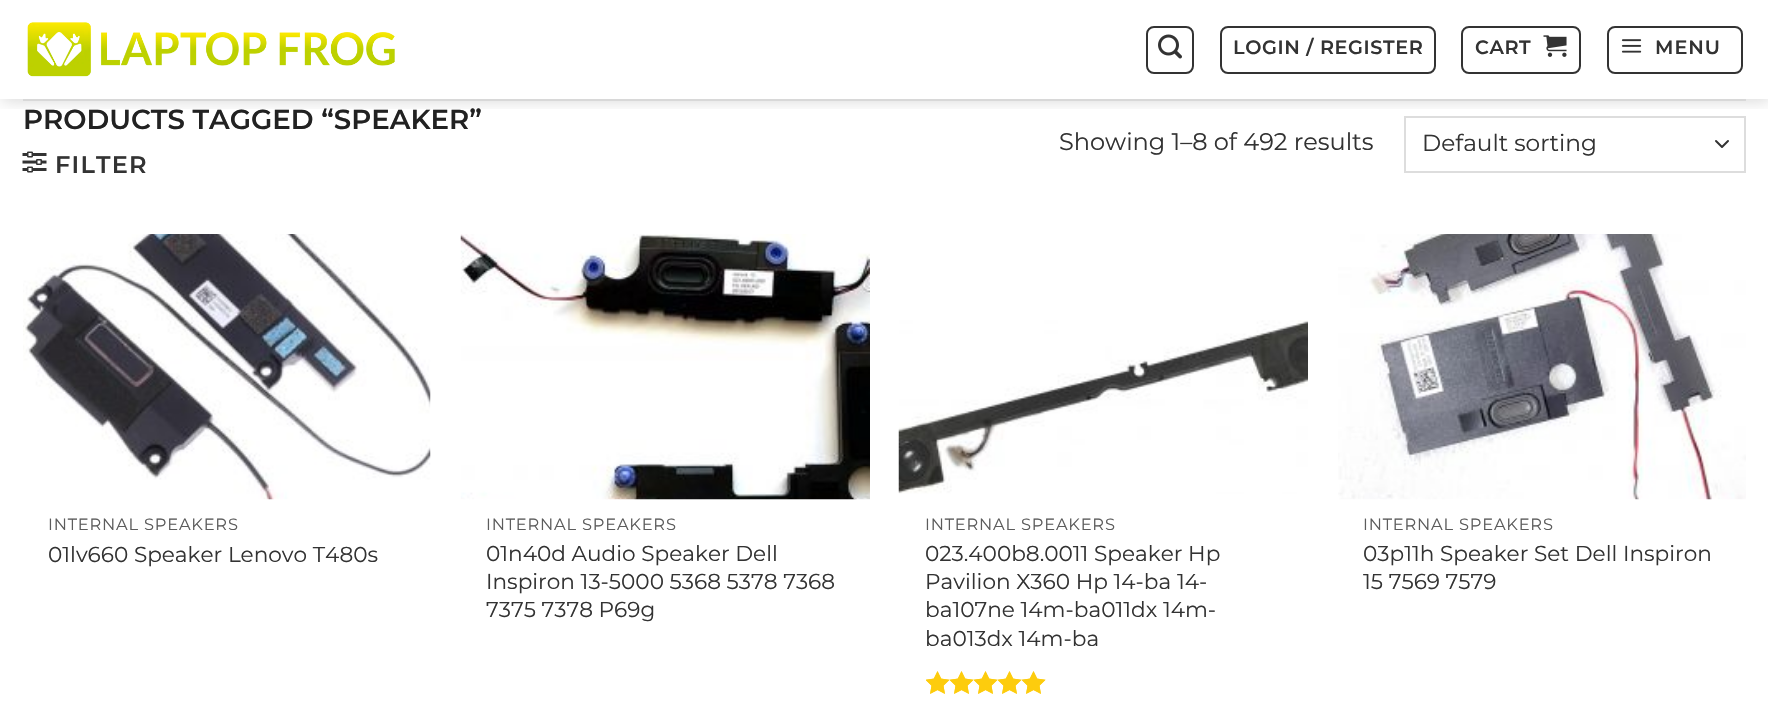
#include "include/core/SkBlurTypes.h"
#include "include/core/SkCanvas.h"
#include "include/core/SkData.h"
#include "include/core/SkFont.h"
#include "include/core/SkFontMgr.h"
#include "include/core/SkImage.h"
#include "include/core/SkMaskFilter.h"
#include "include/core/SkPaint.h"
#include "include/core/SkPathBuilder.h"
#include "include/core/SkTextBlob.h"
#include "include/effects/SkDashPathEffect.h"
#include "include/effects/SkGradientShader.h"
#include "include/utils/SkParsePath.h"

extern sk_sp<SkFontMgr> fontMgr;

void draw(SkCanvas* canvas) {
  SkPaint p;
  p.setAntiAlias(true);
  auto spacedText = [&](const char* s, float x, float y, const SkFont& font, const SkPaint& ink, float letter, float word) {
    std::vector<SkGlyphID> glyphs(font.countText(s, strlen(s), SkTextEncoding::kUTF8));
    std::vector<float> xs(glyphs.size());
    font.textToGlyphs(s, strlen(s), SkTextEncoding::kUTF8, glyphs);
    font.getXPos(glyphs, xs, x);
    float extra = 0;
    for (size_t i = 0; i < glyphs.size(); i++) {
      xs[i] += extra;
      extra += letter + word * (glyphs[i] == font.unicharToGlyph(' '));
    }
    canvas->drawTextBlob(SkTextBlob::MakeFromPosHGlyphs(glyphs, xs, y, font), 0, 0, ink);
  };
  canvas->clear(SK_ColorWHITE);
  p.setStyle(SkPaint::kStroke_Style);
  p.setStrokeWidth(2);
  p.setStrokeCap(SkPaint::kRound_Cap);
  p.setStrokeJoin(SkPaint::kRound_Join);
  p.setColor(SkColorSetRGB(51, 51, 51));
  canvas->drawPath(SkPathBuilder().moveTo(1716, 141).lineTo(1722, 147).lineTo(1728, 141).detach(), p);
  p.setStrokeCap(SkPaint::kButt_Cap);
  p.setStrokeJoin(SkPaint::kMiter_Join);
  p.setColor(SkColorSetRGB(221, 221, 221));
  canvas->drawRect(SkRect::MakeLTRB(1405, 117, 1745, 172), p);
  canvas->save();
  canvas->clipRect(SkRect::MakeLTRB(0, 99, 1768, 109));
  p.setStyle(SkPaint::kFill_Style);
  p.setColor(SkColorSetARGB(38, 0, 0, 0));
  p.setMaskFilter(SkMaskFilter::MakeBlur(kNormal_SkBlurStyle, 7.5f));
  canvas->drawRect(SkRect::MakeLTRB(2, 2, 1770, 101), p);
  p.setMaskFilter(nullptr);
  canvas->restore();
  canvas->drawImageRect(SkImages::DeferredFromEncodedData(SkData::MakeFromFileName("images/1.png")), SkRect::MakeLTRB(27, 22, 395, 77), SkSamplingOptions());
  p.setStyle(SkPaint::kStroke_Style);
  p.setColor(SkColorSetRGB(51, 51, 51));
  canvas->drawRoundRect(SkRect::MakeLTRB(1147, 27, 1193, 73), 7, 7, p);
  canvas->drawImageRect(SkImages::DeferredFromEncodedData(SkData::MakeFromFileName("images/2.png")), SkRect::MakeLTRB(1158, 34, 1182, 59), SkSamplingOptions());
  canvas->drawRoundRect(SkRect::MakeLTRB(1221, 27, 1435, 73), 7, 7, p);
  canvas->drawRoundRect(SkRect::MakeLTRB(1462, 27, 1580, 73), 7, 7, p);
  canvas->drawImageRect(SkImages::DeferredFromEncodedData(SkData::MakeFromFileName("images/3.png")), SkRect::MakeLTRB(1543, 35, 1567, 57), SkSamplingOptions());
  canvas->drawRoundRect(SkRect::MakeLTRB(1608, 27, 1742, 73), 7, 7, p);
  canvas->drawImageRect(SkImages::DeferredFromEncodedData(SkData::MakeFromFileName("images/4.png")), SkRect::MakeLTRB(1621, 39, 1642, 53), SkSamplingOptions());
  p.setStyle(SkPaint::kFill_Style);
  p.setColor(SkColorSetRGB(216, 216, 216));
  canvas->drawRect(SkRect::MakeLTRB(23, 99, 1746, 101), p);
  canvas->drawImageRect(SkImages::DeferredFromEncodedData(SkData::MakeFromFileName("images/5.png")), SkRect::MakeLTRB(22, 151, 47, 173), SkSamplingOptions());
  canvas->drawImageRect(SkImages::DeferredFromEncodedData(SkData::MakeFromFileName("images/6.png")), SkRect::MakeLTRB(23, 234, 431, 500), SkSamplingOptions());
  canvas->drawImageRect(SkImages::DeferredFromEncodedData(SkData::MakeFromFileName("images/7.png")), SkRect::MakeLTRB(460, 234, 870, 500), SkSamplingOptions());
  canvas->drawImageRect(SkImages::DeferredFromEncodedData(SkData::MakeFromFileName("images/8.png")), SkRect::MakeLTRB(898, 320, 1308, 494), SkSamplingOptions());
  canvas->drawImageRect(SkImages::DeferredFromEncodedData(SkData::MakeFromFileName("images/9.png")), SkRect::MakeLTRB(926, 671, 1046, 694), SkSamplingOptions());
  canvas->drawImageRect(SkImages::DeferredFromEncodedData(SkData::MakeFromFileName("images/10.png")), SkRect::MakeLTRB(926, 671, 1046, 694), SkSamplingOptions());
  canvas->drawImageRect(SkImages::DeferredFromEncodedData(SkData::MakeFromFileName("images/11.png")), SkRect::MakeLTRB(1338, 234, 1746, 500), SkSamplingOptions());
  SkFont font1(fontMgr->matchFamilyStyle("Montserrat", SkFontStyle(600, SkFontStyle::kNormal_Width, SkFontStyle::kUpright_Slant)), 19.25f);
  font1.setSubpixel(true);
  p.setColor(SkColorSetRGB(51, 51, 51));
  spacedText("LOGIN / REGISTER", 1233, 54, font1, p, 0.6f, 0);
  spacedText("CART", 1475, 54, font1, p, 0.6f, 0);
  spacedText("MENU", 1655, 54, font1, p, 1, 0);
  SkFont font2(fontMgr->matchFamilyStyle("Montserrat", SkFontStyle(600, SkFontStyle::kNormal_Width, SkFontStyle::kUpright_Slant)), 27.6f);
  font2.setSubpixel(true);
  p.setColor(SkColorSetRGB(34, 34, 34));
  canvas->drawString("PRODUCTS TAGGED “SPEAKER”", 23, 129, font2, p);
  SkFont font3(fontMgr->matchFamilyStyle("Montserrat", SkFontStyle(600, SkFontStyle::kNormal_Width, SkFontStyle::kUpright_Slant)), 24);
  font3.setSubpixel(true);
  p.setColor(SkColorSetRGB(51, 51, 51));
  spacedText("FILTER", 55, 173, font3, p, 1.25f, 0);
  SkFont font4(fontMgr->matchFamilyStyle("Montserrat", SkFontStyle::Normal()), 24);
  font4.setSubpixel(true);
  canvas->drawString("Showing 1–8 of 492 results", 1059, 150, font4, p);
  SkFont font5(fontMgr->matchFamilyStyle("Montserrat", SkFontStyle::Normal()), 23.25f);
  font5.setSubpixel(true);
  canvas->drawString("Default sorting", 1422, 151, font5, p);
  SkFont font6(fontMgr->matchFamilyStyle("Montserrat", SkFontStyle::Normal()), 16.25f);
  font6.setSubpixel(true);
  p.setColor(SkColorSetRGB(92, 92, 92));
  spacedText("INTERNAL SPEAKERS", 48, 530, font6, p, 0.8f, 0);
  SkFont font7(fontMgr->matchFamilyStyle("Montserrat", SkFontStyle::Normal()), 21.6f);
  font7.setSubpixel(true);
  p.setColor(SkColorSetRGB(51, 51, 51));
  canvas->drawString("01lv660 Speaker Lenovo T480s", 48, 562, font7, p);
  p.setColor(SkColorSetRGB(92, 92, 92));
  spacedText("INTERNAL SPEAKERS", 486, 530, font6, p, 0.8f, 0);
  p.setColor(SkColorSetRGB(51, 51, 51));
  canvas->drawString("01n40d Audio Speaker Dell", 486, 561, font7, p);
  canvas->drawString("Inspiron 13-5000 5368 5378 7368", 486, 589, font7, p);
  canvas->drawString("7375 7378 P69g", 486, 617, font7, p);
  p.setColor(SkColorSetRGB(92, 92, 92));
  spacedText("INTERNAL SPEAKERS", 925, 530, font6, p, 0.8f, 0);
  p.setColor(SkColorSetRGB(51, 51, 51));
  canvas->drawString("023.400b8.0011 Speaker Hp", 925, 561, font7, p);
  canvas->drawString("Pavilion X360 Hp 14-ba 14-", 925, 589, font7, p);
  canvas->drawString("ba107ne 14m-ba011dx 14m-", 925, 617, font7, p);
  canvas->drawString("ba013dx 14m-ba", 925, 646, font7, p);
  p.setColor(SkColorSetRGB(92, 92, 92));
  spacedText("INTERNAL SPEAKERS", 1363, 530, font6, p, 0.8f, 0);
  p.setColor(SkColorSetRGB(51, 51, 51));
  canvas->drawString("03p11h Speaker Set Dell Inspiron", 1363, 561, font7, p);
  canvas->drawString("15 7569 7579", 1363, 589, font7, p);
}
